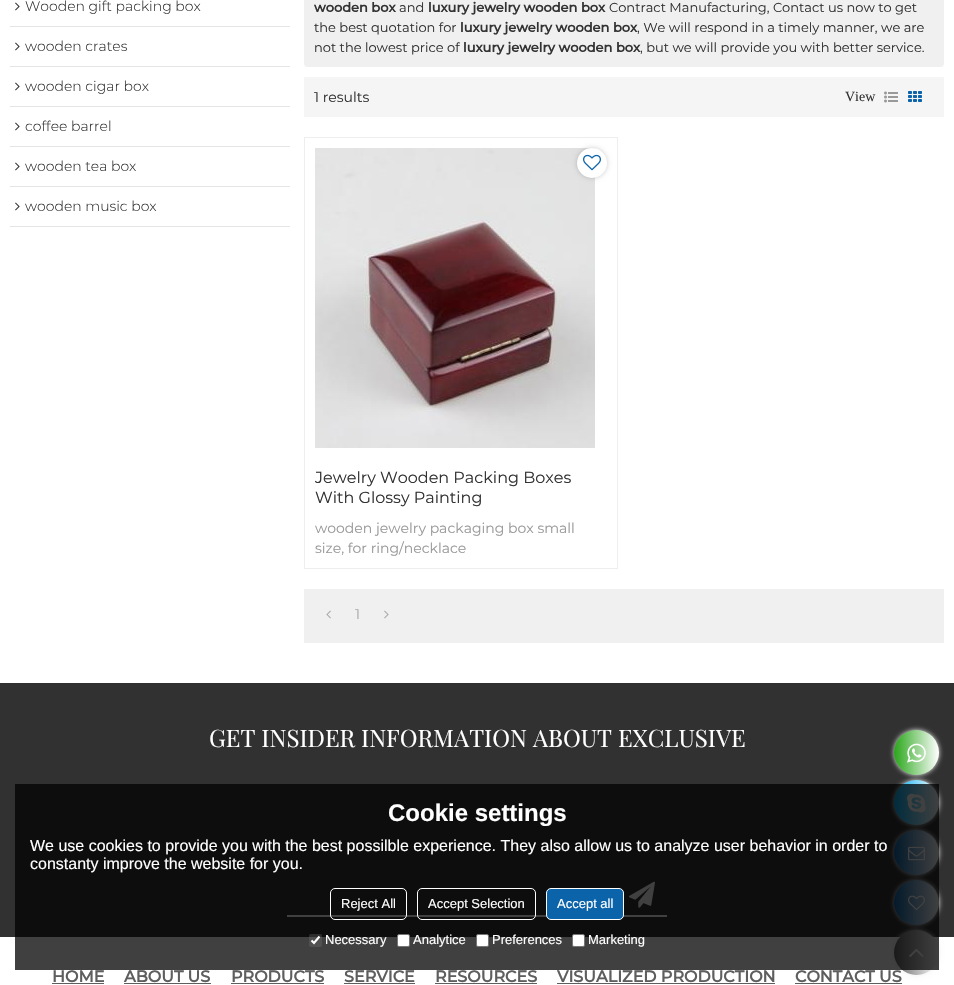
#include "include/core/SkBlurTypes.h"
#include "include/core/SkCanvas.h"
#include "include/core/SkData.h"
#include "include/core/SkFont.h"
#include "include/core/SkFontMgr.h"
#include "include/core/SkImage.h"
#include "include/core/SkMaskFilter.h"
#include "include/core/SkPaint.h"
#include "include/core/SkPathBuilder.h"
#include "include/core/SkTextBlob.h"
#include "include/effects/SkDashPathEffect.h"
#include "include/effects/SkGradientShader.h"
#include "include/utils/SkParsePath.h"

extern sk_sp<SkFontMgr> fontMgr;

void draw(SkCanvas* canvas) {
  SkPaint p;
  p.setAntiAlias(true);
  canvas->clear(SK_ColorWHITE);
  p.setColor(SkColorSetRGB(229, 229, 229));
  canvas->drawRect(SkRect::MakeLTRB(10, 26, 290, 27), p);
  canvas->drawImageRect(SkImages::DeferredFromEncodedData(SkData::MakeFromFileName("images/1.png")), SkRect::MakeLTRB(15, 2, 20, 11), SkSamplingOptions());
  canvas->drawRect(SkRect::MakeLTRB(10, 66, 290, 67), p);
  canvas->drawImageRect(SkImages::DeferredFromEncodedData(SkData::MakeFromFileName("images/1.png")), SkRect::MakeLTRB(15, 42, 20, 51), SkSamplingOptions());
  canvas->drawRect(SkRect::MakeLTRB(10, 106, 290, 107), p);
  canvas->drawImageRect(SkImages::DeferredFromEncodedData(SkData::MakeFromFileName("images/1.png")), SkRect::MakeLTRB(15, 82, 20, 91), SkSamplingOptions());
  canvas->drawRect(SkRect::MakeLTRB(10, 146, 290, 147), p);
  canvas->drawImageRect(SkImages::DeferredFromEncodedData(SkData::MakeFromFileName("images/1.png")), SkRect::MakeLTRB(15, 122, 20, 131), SkSamplingOptions());
  canvas->drawRect(SkRect::MakeLTRB(10, 186, 290, 187), p);
  canvas->drawImageRect(SkImages::DeferredFromEncodedData(SkData::MakeFromFileName("images/1.png")), SkRect::MakeLTRB(15, 162, 20, 171), SkSamplingOptions());
  canvas->drawRect(SkRect::MakeLTRB(10, 226, 290, 227), p);
  canvas->drawImageRect(SkImages::DeferredFromEncodedData(SkData::MakeFromFileName("images/1.png")), SkRect::MakeLTRB(15, 202, 20, 211), SkSamplingOptions());
  p.setColor(SkColorSetRGB(240, 240, 240));
  canvas->drawRoundRect(SkRect::MakeLTRB(304, -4, 944, 67), 4, 4, p);
  p.setColor(SkColorSetRGB(245, 245, 245));
  canvas->drawRect(SkRect::MakeLTRB(304, 77, 944, 117), p);
  canvas->drawImageRect(SkImages::DeferredFromEncodedData(SkData::MakeFromFileName("images/2.png")), SkRect::MakeLTRB(884, 91, 898, 103), SkSamplingOptions());
  canvas->drawImageRect(SkImages::DeferredFromEncodedData(SkData::MakeFromFileName("images/3.png")), SkRect::MakeLTRB(908, 91, 922, 102), SkSamplingOptions());
  p.setStyle(SkPaint::kStroke_Style);
  p.setStrokeWidth(1);
  p.setColor(SkColorSetRGB(238, 238, 238));
  canvas->drawRect(SkRect::MakeLTRB(304.5f, 137.5f, 617.5f, 568.5f), p);
  canvas->drawImageRect(SkImages::DeferredFromEncodedData(SkData::MakeFromFileName("images/5.png")), SkRect::MakeLTRB(315, 148, 595, 448), SkSamplingOptions());
  p.setStyle(SkPaint::kFill_Style);
  p.setColor(SkColorSetARGB(51, 0, 0, 0));
  p.setMaskFilter(SkMaskFilter::MakeBlur(kNormal_SkBlurStyle, 2.5f));
  canvas->drawRoundRect(SkRect::MakeLTRB(577, 148, 607, 178), 15, 15, p);
  p.setMaskFilter(nullptr);
  p.setColor(SK_ColorWHITE);
  canvas->drawCircle(592, 163, 15, p);
  canvas->drawImageRect(SkImages::DeferredFromEncodedData(SkData::MakeFromFileName("images/4.png")), SkRect::MakeLTRB(583, 154, 601, 171), SkSamplingOptions());
  p.setColor(SkColorSetRGB(240, 240, 240));
  canvas->drawRect(SkRect::MakeLTRB(304, 589, 944, 643), p);
  canvas->drawImageRect(SkImages::DeferredFromEncodedData(SkData::MakeFromFileName("images/6.png")), SkRect::MakeLTRB(326, 610, 331, 619), SkSamplingOptions());
  canvas->drawImageRect(SkImages::DeferredFromEncodedData(SkData::MakeFromFileName("images/7.png")), SkRect::MakeLTRB(384, 610, 389, 619), SkSamplingOptions());
  p.setColor(SkColorSetRGB(49, 49, 49));
  canvas->drawRect(SkRect::MakeLTRB(0, 683, 954, 937), p);
  p.setColor(SK_ColorWHITE);
  canvas->drawRect(SkRect::MakeLTRB(287, 915, 667, 917), p);
  canvas->drawImageRect(SkImages::DeferredFromEncodedData(SkData::MakeFromFileName("images/8.png")), SkRect::MakeLTRB(629, 881, 655, 908), SkSamplingOptions());
  p.setColor(SkColorSetRGB(94, 94, 94));
  canvas->drawRect(SkRect::MakeLTRB(52, 983, 104, 984), p);
  canvas->drawRect(SkRect::MakeLTRB(124, 983, 211, 984), p);
  canvas->drawRect(SkRect::MakeLTRB(231, 983, 324, 984), p);
  canvas->drawRect(SkRect::MakeLTRB(344, 983, 415, 984), p);
  canvas->drawRect(SkRect::MakeLTRB(435, 983, 537, 984), p);
  canvas->drawRect(SkRect::MakeLTRB(557, 983, 775, 984), p);
  canvas->drawRect(SkRect::MakeLTRB(795, 983, 902, 984), p);
  p.setColor(SkColorSetRGB(238, 238, 238));
  p.setMaskFilter(SkMaskFilter::MakeBlur(kNormal_SkBlurStyle, 2.5f));
  canvas->drawRoundRect(SkRect::MakeLTRB(894, 730, 939, 775), 22.5f, 22.5f, p);
  p.setMaskFilter(nullptr);
  {
    const SkColor colors[] = {SkColorSetRGB(41, 166, 26), SK_ColorWHITE};
    const float stops[] = {0, 1};
    const SkPoint ends[] = {{894, 753}, {939, 753}};
    p.setShader(SkGradientShader::MakeLinear(ends, colors, stops, 2, SkTileMode::kClamp));
    p.setAlpha(255);
  }
  canvas->drawCircle(916.5f, 752.5f, 22.5f, p);
  canvas->drawImageRect(SkImages::DeferredFromEncodedData(SkData::MakeFromFileName("images/9.png")), SkRect::MakeLTRB(907, 743, 926, 763), SkSamplingOptions());
  p.setShader(nullptr);
  p.setColor(SkColorSetRGB(238, 238, 238));
  p.setMaskFilter(SkMaskFilter::MakeBlur(kNormal_SkBlurStyle, 2.5f));
  canvas->drawRoundRect(SkRect::MakeLTRB(894, 780, 939, 825), 22.5f, 22.5f, p);
  p.setMaskFilter(nullptr);
  {
    const SkColor colors[] = {SkColorSetRGB(1, 174, 243), SK_ColorWHITE};
    const float stops[] = {0, 1};
    const SkPoint ends[] = {{894, 803}, {939, 803}};
    p.setShader(SkGradientShader::MakeLinear(ends, colors, stops, 2, SkTileMode::kClamp));
    p.setAlpha(255);
  }
  canvas->drawCircle(916.5f, 802.5f, 22.5f, p);
  canvas->drawImageRect(SkImages::DeferredFromEncodedData(SkData::MakeFromFileName("images/10.png")), SkRect::MakeLTRB(907, 793, 926, 813), SkSamplingOptions());
  p.setShader(nullptr);
  p.setColor(SkColorSetRGB(238, 238, 238));
  p.setMaskFilter(SkMaskFilter::MakeBlur(kNormal_SkBlurStyle, 2.5f));
  canvas->drawRoundRect(SkRect::MakeLTRB(894, 830, 939, 875), 22.5f, 22.5f, p);
  p.setMaskFilter(nullptr);
  {
    const SkColor colors[] = {SkColorSetRGB(11, 100, 170), SK_ColorWHITE};
    const float stops[] = {0, 1};
    const SkPoint ends[] = {{894, 853}, {939, 853}};
    p.setShader(SkGradientShader::MakeLinear(ends, colors, stops, 2, SkTileMode::kClamp));
    p.setAlpha(255);
  }
  canvas->drawCircle(916.5f, 852.5f, 22.5f, p);
  canvas->drawImageRect(SkImages::DeferredFromEncodedData(SkData::MakeFromFileName("images/11.png")), SkRect::MakeLTRB(908, 846, 925, 861), SkSamplingOptions());
  p.setShader(nullptr);
  p.setColor(SkColorSetRGB(238, 238, 238));
  p.setMaskFilter(SkMaskFilter::MakeBlur(kNormal_SkBlurStyle, 2.5f));
  canvas->drawRoundRect(SkRect::MakeLTRB(894, 880, 939, 925), 22.5f, 22.5f, p);
  p.setMaskFilter(nullptr);
  {
    const SkColor colors[] = {SkColorSetRGB(11, 100, 170), SK_ColorWHITE};
    const float stops[] = {0, 1};
    const SkPoint ends[] = {{894, 903}, {939, 903}};
    p.setShader(SkGradientShader::MakeLinear(ends, colors, stops, 2, SkTileMode::kClamp));
    p.setAlpha(255);
  }
  canvas->drawCircle(916.5f, 902.5f, 22.5f, p);
  canvas->drawImageRect(SkImages::DeferredFromEncodedData(SkData::MakeFromFileName("images/12.png")), SkRect::MakeLTRB(908, 895, 925, 911), SkSamplingOptions());
  p.setShader(nullptr);
  p.setColor(SkColorSetRGB(238, 238, 238));
  p.setMaskFilter(SkMaskFilter::MakeBlur(kNormal_SkBlurStyle, 2.5f));
  canvas->drawRoundRect(SkRect::MakeLTRB(894, 930, 939, 975), 22.5f, 22.5f, p);
  p.setMaskFilter(nullptr);
  SkFont font1(fontMgr->matchFamilyStyle("Montserrat", SkFontStyle(300, SkFontStyle::kNormal_Width, SkFontStyle::kUpright_Slant)), 14);
  font1.setSubpixel(true);
  p.setColor(SkColorSetRGB(51, 51, 51));
  canvas->drawString("Wooden gift packing box", 25, 11, font1, p);
  canvas->drawString("wooden crates", 25, 51, font1, p);
  canvas->drawString("wooden cigar box", 25, 91, font1, p);
  canvas->drawString("coffee barrel", 25, 131, font1, p);
  canvas->drawString("wooden tea box", 25, 171, font1, p);
  canvas->drawString("wooden music box", 25, 211, font1, p);
  SkFont font2(fontMgr->matchFamilyStyle("Montserrat", SkFontStyle::Bold()), 13);
  font2.setSubpixel(true);
  canvas->drawString("wooden box", 314, 12, font2, p);
  SkFont font3(fontMgr->matchFamilyStyle("Montserrat", SkFontStyle::Normal()), 13);
  font3.setSubpixel(true);
  canvas->drawString("and", 399, 12, font3, p);
  canvas->drawString("luxury jewelry wooden box", 428, 12, font2, p);
  canvas->drawString("Contract Manufacturing, Contact us now to get", 609, 12, font3, p);
  canvas->drawString("the best quotation for", 314, 32, font3, p);
  canvas->drawString("luxury jewelry wooden box", 460, 32, font2, p);
  canvas->drawString(", We will respond in a timely manner, we are", 637, 32, font3, p);
  canvas->drawString("not the lowest price of", 314, 52, font3, p);
  canvas->drawString("luxury jewelry wooden box", 463, 52, font2, p);
  canvas->drawString(", but we will provide you with better service.", 640, 52, font3, p);
  SkFont font4(fontMgr->matchFamilyStyle("Montserrat", SkFontStyle::Normal()), 14);
  font4.setSubpixel(true);
  canvas->drawString("1 results", 314, 102, font4, p);
  SkFont font5(fontMgr->matchFamilyStyle("Liberation Serif", SkFontStyle::Normal()), 14);
  font5.setSubpixel(true);
  canvas->drawString("View", 845, 101, font5, p);
  SkFont font6(fontMgr->matchFamilyStyle("Montserrat", SkFontStyle::Normal()), 16);
  font6.setSubpixel(true);
  canvas->drawString("Jewelry Wooden Packing Boxes", 315, 483, font6, p);
  canvas->drawString("With Glossy Painting", 315, 503, font6, p);
  p.setColor(SkColorSetRGB(153, 153, 153));
  canvas->drawString("wooden jewelry packaging box small", 315, 533, font4, p);
  canvas->drawString("size, for ring/necklace", 315, 553, font4, p);
  p.setColor(SkColorSetRGB(170, 170, 170));
  canvas->drawString("1", 355, 619, font4, p);
  SkFont font7(fontMgr->matchFamilyStyle("Playfair Display", SkFontStyle::Normal()), 24);
  font7.setSubpixel(true);
  p.setColor(SK_ColorWHITE);
  canvas->drawString("GET INSIDER INFORMATION ABOUT EXCLUSIVE", 209, 747, font7, p);
  SkFont font8(fontMgr->matchFamilyStyle("Montserrat", SkFontStyle::Bold()), 16);
  font8.setSubpixel(true);
  p.setColor(SkColorSetRGB(94, 94, 94));
  canvas->drawString("HOME", 52, 982, font8, p);
  canvas->drawString("ABOUT US", 124, 982, font8, p);
  canvas->drawString("PRODUCTS", 231, 982, font8, p);
  canvas->drawString("SERVICE", 344, 982, font8, p);
  canvas->drawString("RESOURCES", 435, 982, font8, p);
  canvas->drawString("VISUALIZED PRODUCTION", 557, 982, font8, p);
  canvas->drawString("CONTACT US", 795, 982, font8, p);
  {
    const SkColor colors[] = {SkColorSetRGB(102, 102, 102), SK_ColorWHITE};
    const float stops[] = {0, 1};
    const SkPoint ends[] = {{894, 953}, {939, 953}};
    p.setShader(SkGradientShader::MakeLinear(ends, colors, stops, 2, SkTileMode::kClamp));
    p.setAlpha(255);
  }
  canvas->drawCircle(916.5f, 952.5f, 22.5f, p);
  canvas->drawImageRect(SkImages::DeferredFromEncodedData(SkData::MakeFromFileName("images/13.png")), SkRect::MakeLTRB(909, 948, 924, 957), SkSamplingOptions());
  p.setShader(nullptr);
  p.setColor(SkColorSetARGB(191, 0, 0, 0));
  canvas->drawRect(SkRect::MakeLTRB(15, 784, 939, 970), p);
  SkFont font9(fontMgr->matchFamilyStyle("Liberation Sans", SkFontStyle::Normal()), 13);
  font9.setSubpixel(true);
  p.setColor(SK_ColorWHITE);
  canvas->drawString("Marketing", 588, 944, font9, p);
  canvas->drawRoundRect(SkRect::MakeLTRB(572.5f, 934.5f, 584.5f, 946.5f), 1.5f, 1.5f, p);
  p.setStyle(SkPaint::kStroke_Style);
  p.setColor(SkColorSetRGB(118, 118, 118));
  canvas->drawRoundRect(SkRect::MakeLTRB(572.5f, 934.5f, 584.5f, 946.5f), 1.5f, 1.5f, p);
  p.setStyle(SkPaint::kFill_Style);
  p.setColor(SK_ColorWHITE);
  canvas->drawString("Preferences", 492, 944, font9, p);
  canvas->drawRoundRect(SkRect::MakeLTRB(476.5f, 934.5f, 488.5f, 946.5f), 1.5f, 1.5f, p);
  p.setStyle(SkPaint::kStroke_Style);
  p.setColor(SkColorSetRGB(118, 118, 118));
  canvas->drawRoundRect(SkRect::MakeLTRB(476.5f, 934.5f, 488.5f, 946.5f), 1.5f, 1.5f, p);
  p.setStyle(SkPaint::kFill_Style);
  p.setColor(SK_ColorWHITE);
  canvas->drawString("Analytice", 413, 944, font9, p);
  canvas->drawRoundRect(SkRect::MakeLTRB(397.5f, 934.5f, 409.5f, 946.5f), 1.5f, 1.5f, p);
  p.setStyle(SkPaint::kStroke_Style);
  p.setColor(SkColorSetRGB(118, 118, 118));
  canvas->drawRoundRect(SkRect::MakeLTRB(397.5f, 934.5f, 409.5f, 946.5f), 1.5f, 1.5f, p);
  p.setStyle(SkPaint::kFill_Style);
  p.setColor(SK_ColorWHITE);
  canvas->drawString("Necessary", 325, 944, font9, p);
  p.setColor(SkColorSetARGB(77, 118, 118, 118));
  canvas->drawRoundRect(SkRect::MakeLTRB(309, 934, 322, 947), 2, 2, p);
  p.setStyle(SkPaint::kStroke_Style);
  p.setStrokeWidth(2.1f);
  p.setColor(SK_ColorWHITE);
  canvas->drawPath(SkPathBuilder().moveTo(311.5f, 940.5f).lineTo(314, 943).lineTo(319.5f, 936.5f).detach(), p);
  p.setStyle(SkPaint::kFill_Style);
  p.setColor(SkColorSetRGB(11, 100, 170));
  canvas->drawRoundRect(SkRect::MakeLTRB(546.5f, 888.5f, 623.5f, 919.5f), 4.5f, 4.5f, p);
  p.setStyle(SkPaint::kStroke_Style);
  p.setStrokeWidth(1);
  p.setColor(SK_ColorWHITE);
  canvas->drawRoundRect(SkRect::MakeLTRB(546.5f, 888.5f, 623.5f, 919.5f), 4.5f, 4.5f, p);
  p.setStyle(SkPaint::kFill_Style);
  canvas->drawString("Accept all", 557, 908, font9, p);
  p.setStyle(SkPaint::kStroke_Style);
  canvas->drawRoundRect(SkRect::MakeLTRB(417.5f, 888.5f, 535.5f, 919.5f), 4.5f, 4.5f, p);
  p.setStyle(SkPaint::kFill_Style);
  canvas->drawString("Accept Selection", 428, 908, font9, p);
  p.setStyle(SkPaint::kStroke_Style);
  canvas->drawRoundRect(SkRect::MakeLTRB(330.5f, 888.5f, 406.5f, 919.5f), 4.5f, 4.5f, p);
  p.setStyle(SkPaint::kFill_Style);
  canvas->drawString("Reject All", 341, 908, font9, p);
  SkFont font10(fontMgr->matchFamilyStyle("Liberation Sans", SkFontStyle::Normal()), 16);
  font10.setSubpixel(true);
  canvas->drawString("constanty improve the website for you.", 30, 869, font10, p);
  canvas->drawString("We use cookies to provide you with the best possilble experience. They also allow us to analyze user behavior in order to", 30, 851, font10, p);
  SkFont font11(fontMgr->matchFamilyStyle("Liberation Sans", SkFontStyle::Bold()), 24);
  font11.setSubpixel(true);
  canvas->drawString("Cookie settings", 388, 821, font11, p);
}
